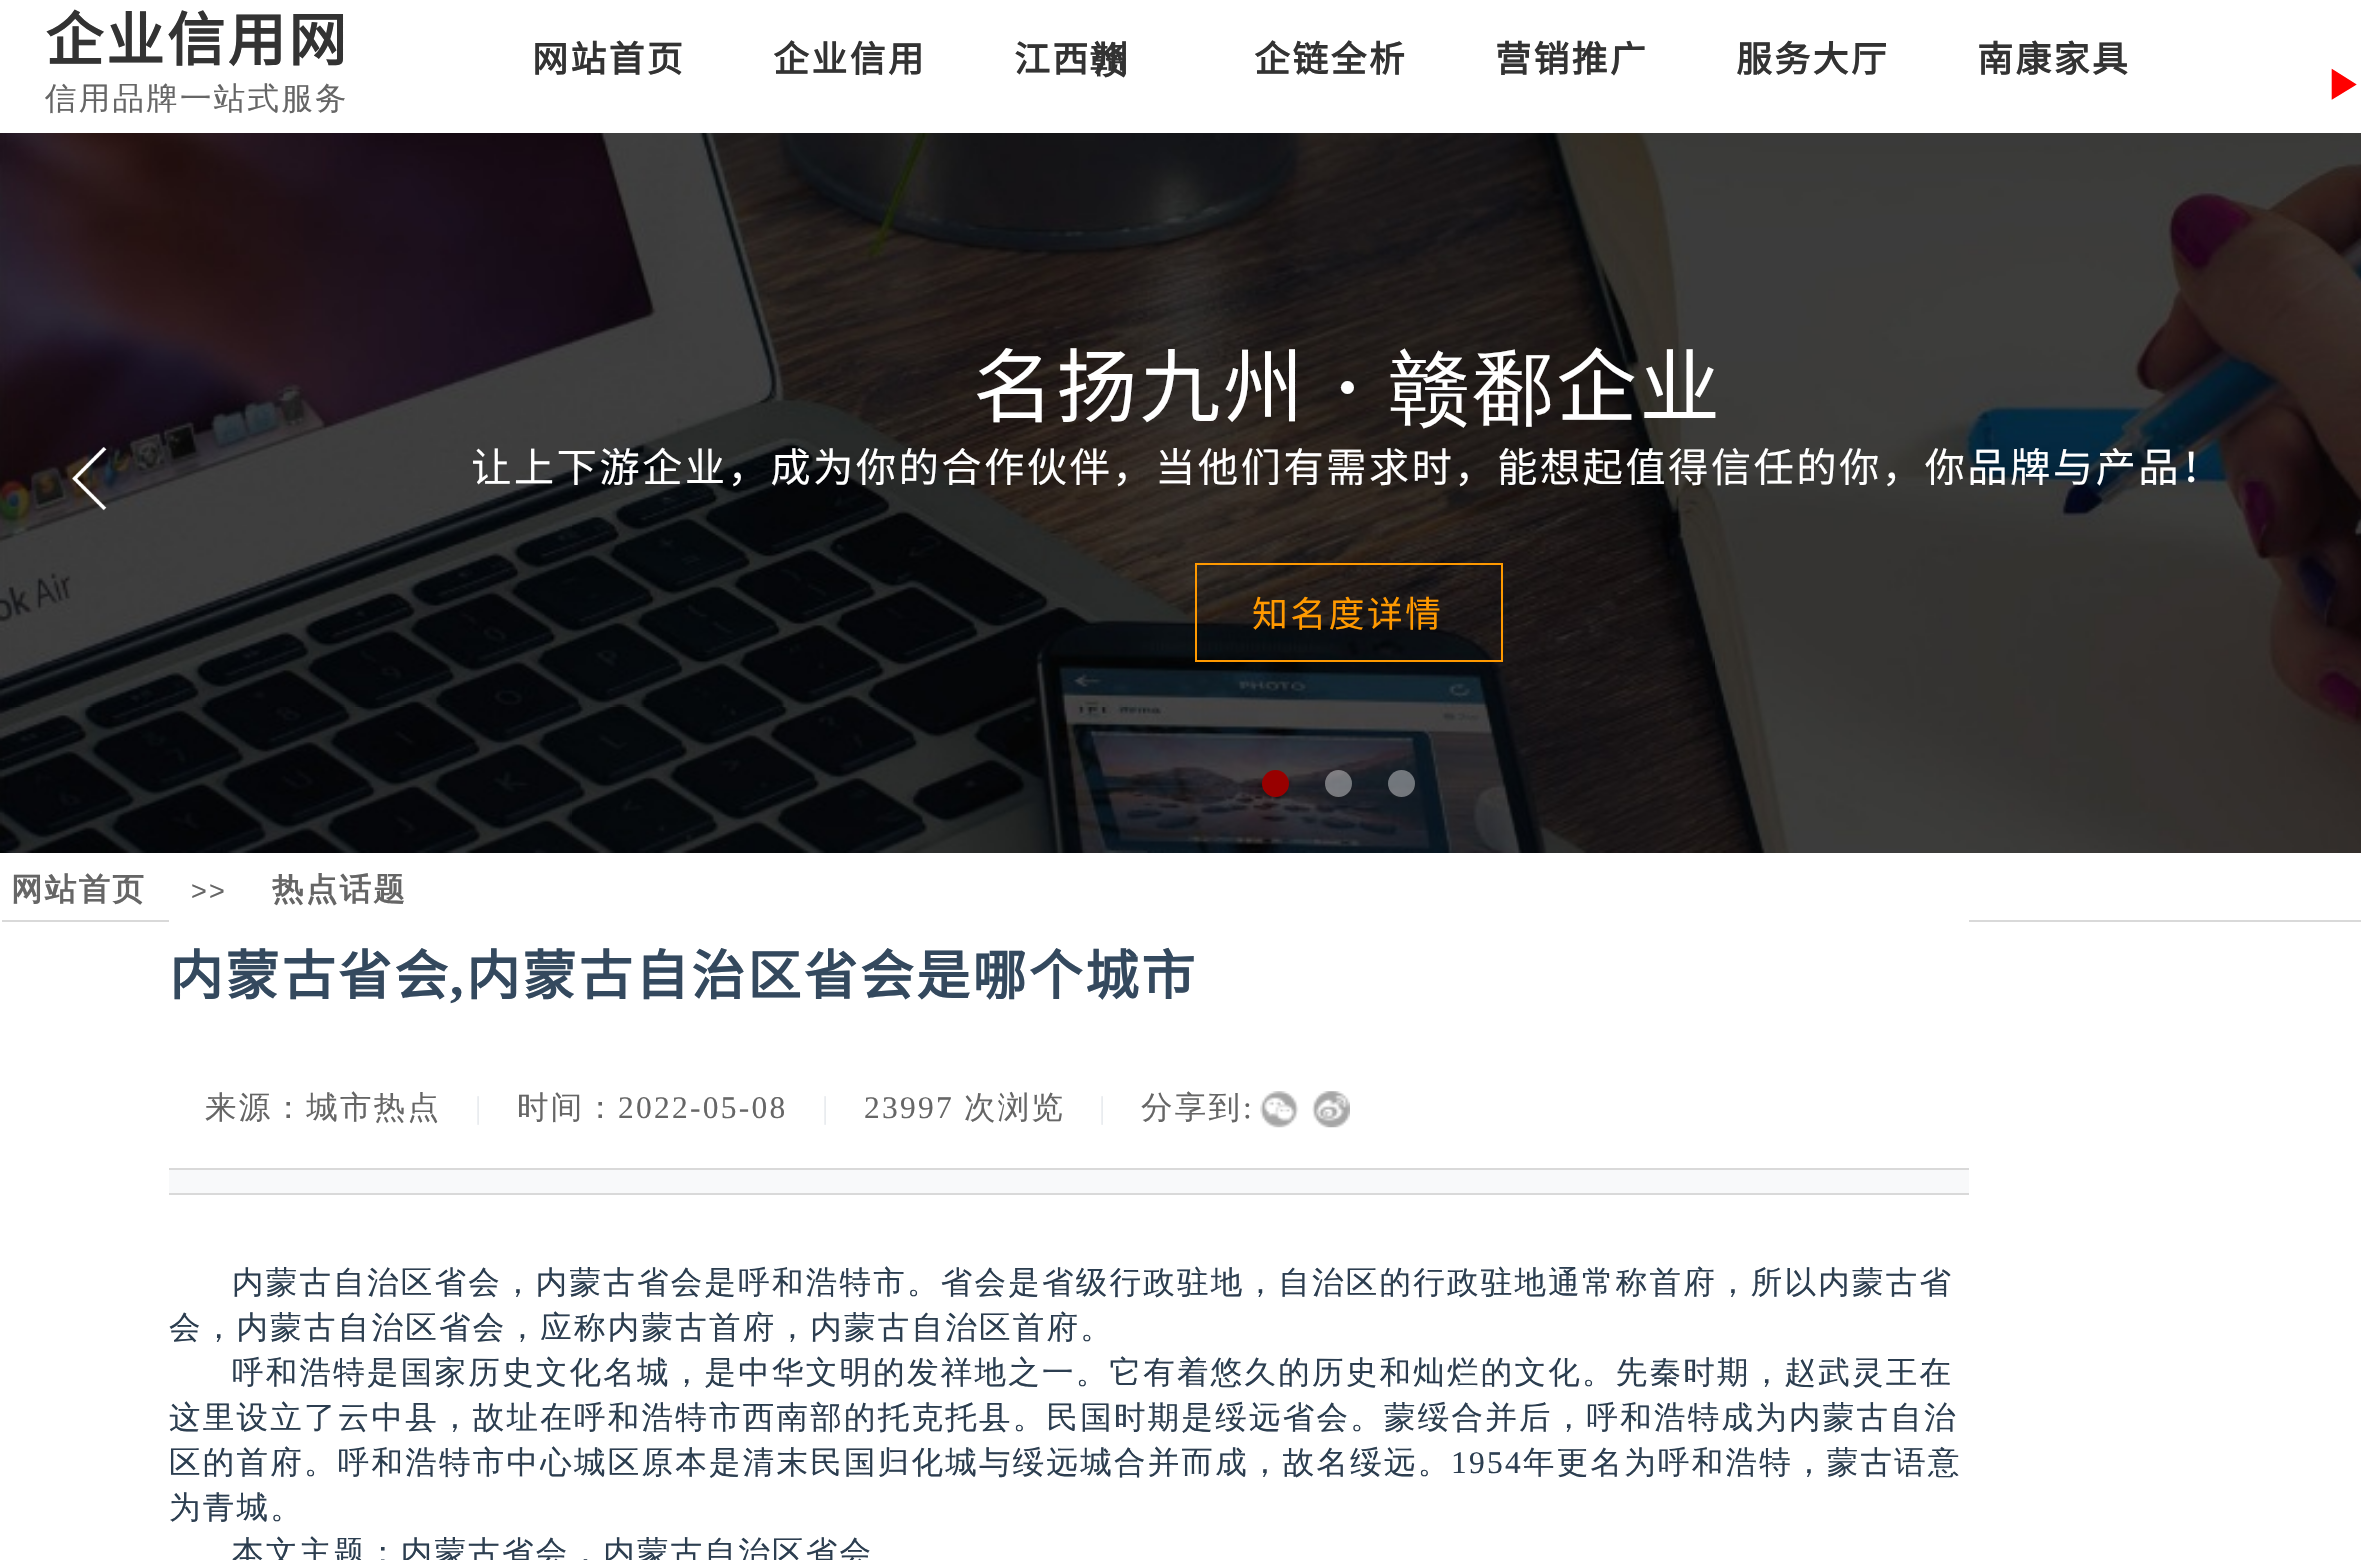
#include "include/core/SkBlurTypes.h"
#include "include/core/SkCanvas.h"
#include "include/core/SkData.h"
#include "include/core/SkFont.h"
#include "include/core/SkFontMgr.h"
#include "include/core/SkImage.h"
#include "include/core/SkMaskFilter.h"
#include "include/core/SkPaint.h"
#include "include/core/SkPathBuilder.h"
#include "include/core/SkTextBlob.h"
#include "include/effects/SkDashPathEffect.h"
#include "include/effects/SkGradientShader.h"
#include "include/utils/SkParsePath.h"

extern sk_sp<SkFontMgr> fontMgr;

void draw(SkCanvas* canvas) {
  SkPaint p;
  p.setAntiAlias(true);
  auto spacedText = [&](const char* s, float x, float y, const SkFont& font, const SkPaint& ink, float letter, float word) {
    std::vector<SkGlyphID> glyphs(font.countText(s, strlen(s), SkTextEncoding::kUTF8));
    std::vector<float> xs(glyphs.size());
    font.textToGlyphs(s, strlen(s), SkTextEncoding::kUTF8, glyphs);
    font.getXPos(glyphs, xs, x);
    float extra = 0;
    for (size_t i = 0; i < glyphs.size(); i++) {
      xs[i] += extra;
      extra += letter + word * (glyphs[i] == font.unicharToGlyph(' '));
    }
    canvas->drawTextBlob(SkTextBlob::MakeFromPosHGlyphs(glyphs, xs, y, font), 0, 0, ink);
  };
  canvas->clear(SK_ColorWHITE);
  canvas->drawImageRect(SkImages::DeferredFromEncodedData(SkData::MakeFromFileName("images/2.png")), SkRect::MakeLTRB(0, 133, 2361, 853), SkSamplingOptions());
  canvas->drawImageRect(SkImages::DeferredFromEncodedData(SkData::MakeFromFileName("images/1.png")), SkRect::MakeLTRB(72, 447, 107, 511), SkSamplingOptions());
  p.setStyle(SkPaint::kStroke_Style);
  p.setStrokeWidth(2);
  p.setColor(SkColorSetRGB(255, 153, 0));
  canvas->drawRect(SkRect::MakeLTRB(1196, 564, 1502, 661), p);
  p.setStyle(SkPaint::kFill_Style);
  p.setColor(SkColorSetRGB(152, 0, 0));
  canvas->drawCircle(1275.5f, 783.5f, 13.5f, p);
  p.setColor(SkColorSetARGB(102, 255, 255, 255));
  canvas->drawCircle(1338.5f, 783.5f, 13.5f, p);
  canvas->drawCircle(1401.5f, 783.5f, 13.5f, p);
  p.setColor(SkColorSetRGB(217, 217, 217));
  canvas->drawRect(SkRect::MakeLTRB(2, 920, 2361, 922), p);
  p.setColor(SK_ColorWHITE);
  canvas->drawRect(SkRect::MakeLTRB(169, 920, 1969, 922), p);
  canvas->drawImageRect(SkImages::DeferredFromEncodedData(SkData::MakeFromFileName("images/3.png")), SkRect::MakeLTRB(1260, 1091, 1299, 1128), SkSamplingOptions());
  canvas->drawImageRect(SkImages::DeferredFromEncodedData(SkData::MakeFromFileName("images/4.png")), SkRect::MakeLTRB(1312, 1091, 1350, 1128), SkSamplingOptions());
  p.setColor(SkColorSetRGB(248, 249, 250));
  canvas->drawRect(SkRect::MakeLTRB(169, 1170, 1969, 1193), p);
  p.setColor(SkColorSetRGB(217, 217, 217));
  canvas->drawRect(SkRect::MakeLTRB(169, 1168, 1969, 1170), p);
  canvas->drawRect(SkRect::MakeLTRB(169, 1193, 1969, 1195), p);
  SkFont font1(fontMgr->matchFamilyStyle("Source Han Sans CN", SkFontStyle::Bold()), 58.5f);
  font1.setSubpixel(true);
  p.setColor(SkColorSetRGB(51, 51, 51));
  spacedText("企业信用网", 45, 61, font1, p, 2.25f, 0);
  SkFont font2(fontMgr->matchFamilyStyle("WenQuanYi Zen Hei", SkFontStyle(500, SkFontStyle::kNormal_Width, SkFontStyle::kUpright_Slant)), 31.5f);
  font2.setSubpixel(true);
  p.setColor(SkColorSetRGB(102, 102, 102));
  spacedText("信用品牌一站式服务", 45, 109, font2, p, 2.25f, 0);
  SkFont font3(fontMgr->matchFamilyStyle("Source Han Sans CN", SkFontStyle::Bold()), 36);
  font3.setSubpixel(true);
  p.setColor(SkColorSetRGB(51, 51, 51));
  spacedText("网站首页", 532, 72, font3, p, 2.25f, 0);
  spacedText("企业信用", 773, 72, font3, p, 2.25f, 0);
  spacedText("江西 州", 1014, 72, font3, p, 2.25f, 0);
  SkFont font4(fontMgr->matchFamilyStyle("WenQuanYi Zen Hei", SkFontStyle::Bold()), 36);
  font4.setSubpixel(true);
  spacedText("赣", 1090, 72, font4, p, 2.25f, 0);
  spacedText("企链全析", 1254, 72, font3, p, 2.25f, 0);
  spacedText("营销推广", 1495, 72, font3, p, 2.25f, 0);
  spacedText("服务大厅", 1736, 72, font3, p, 2.25f, 0);
  spacedText("南康家具", 1977, 72, font3, p, 2.25f, 0);
  p.setColor(SkColorSetRGB(255, 0, 0));
  spacedText("▶", 2326, 98, font4, p, 2.25f, 0);
  SkFont font5(fontMgr->matchFamilyStyle("Source Han Sans CN", SkFontStyle::Normal()), 81);
  font5.setSubpixel(true);
  p.setColor(SK_ColorWHITE);
  spacedText("名扬九州", 973, 416, font5, p, 2.25f, 0);
  SkFont font6(fontMgr->matchFamilyStyle("WenQuanYi Zen Hei", SkFontStyle(500, SkFontStyle::kNormal_Width, SkFontStyle::kUpright_Slant)), 81);
  font6.setSubpixel(true);
  spacedText("・赣鄱", 1306, 416, font6, p, 2.25f, 0);
  spacedText("企业", 1556, 416, font5, p, 2.25f, 0);
  SkFont font7(fontMgr->matchFamilyStyle("Source Han Sans CN", SkFontStyle::Normal()), 40.5f);
  font7.setSubpixel(true);
  spacedText("让上下游企业，成为你的合作伙伴，当他们有需求时，能想起值得信任的你，你品牌与产品！", 471, 482, font7, p, 2.25f, 0);
  SkFont font8(fontMgr->matchFamilyStyle("Source Han Sans CN", SkFontStyle::Normal()), 36);
  font8.setSubpixel(true);
  p.setColor(SkColorSetRGB(255, 153, 0));
  spacedText("知名度详情", 1252, 627, font8, p, 2.25f, 0);
  SkFont font9(fontMgr->matchFamilyStyle("WenQuanYi Zen Hei", SkFontStyle::Bold()), 31.5f);
  font9.setSubpixel(true);
  p.setColor(SkColorSetRGB(102, 102, 102));
  spacedText("网站首页", 11, 900, font9, p, 2.25f, 0);
  SkFont font10(fontMgr->matchFamilyStyle("Liberation Sans", SkFontStyle::Normal()), 27);
  font10.setSubpixel(true);
  spacedText(">>", 191, 900, font10, p, 2.25f, 0);
  spacedText("热点话题", 272, 900, font9, p, 2.25f, 0);
  SkFont font11(fontMgr->matchFamilyStyle("Source Han Sans CN", SkFontStyle::Bold()), 54);
  font11.setSubpixel(true);
  p.setColor(SkColorSetRGB(52, 73, 94));
  spacedText("内蒙古省会", 169, 995, font11, p, 2.25f, 0);
  SkFont font12(fontMgr->matchFamilyStyle("Liberation Serif", SkFontStyle::Bold()), 54);
  font12.setSubpixel(true);
  spacedText(",", 450, 995, font12, p, 2.25f, 0);
  spacedText("内蒙古自治区省会是哪个城市", 466, 995, font11, p, 2.25f, 0);
  p.setColor(SkColorSetRGB(102, 102, 102));
  spacedText("来源：城市热点", 205, 1118, font2, p, 2.25f, 0);
  SkFont font13(fontMgr->matchFamilyStyle("Liberation Serif", SkFontStyle::Normal()), 31.5f);
  font13.setSubpixel(true);
  p.setColor(SkColorSetRGB(233, 236, 239));
  spacedText("|", 475, 1118, font13, p, 2.25f, 0);
  p.setColor(SkColorSetRGB(102, 102, 102));
  spacedText("时间：", 517, 1118, font2, p, 2.25f, 0);
  spacedText("2022-05-08", 618, 1118, font13, p, 2.25f, 0);
  p.setColor(SkColorSetRGB(233, 236, 239));
  spacedText("|", 822, 1118, font13, p, 2.25f, 0);
  p.setColor(SkColorSetRGB(102, 102, 102));
  spacedText("23997", 864, 1118, font13, p, 2.25f, 0);
  spacedText("次浏览", 964, 1118, font2, p, 2.25f, 0);
  p.setColor(SkColorSetRGB(233, 236, 239));
  spacedText("|", 1099, 1118, font13, p, 2.25f, 0);
  p.setColor(SkColorSetRGB(102, 102, 102));
  spacedText("分享到", 1141, 1118, font2, p, 2.25f, 0);
  spacedText(":", 1243, 1118, font13, p, 2.25f, 0);
  p.setColor(SkColorSetRGB(44, 62, 80));
  spacedText("内蒙古自治区省会，内蒙古省会是呼和浩特市。省会是省级行政驻地，自治区的行政驻地通常称首府，所以内蒙古省", 232, 1293, font2, p, 2.25f, 0);
  spacedText("会，内蒙古自治区省会，应称内蒙古首府，内蒙古自治区首府。", 169, 1338, font2, p, 2.25f, 0);
  spacedText("呼和浩特是国家历史文化名城，是中华文明的发祥地之一。它有着悠久的历史和灿烂的文化。先秦时期，赵武灵王在", 232, 1383, font2, p, 2.25f, 0);
  spacedText("这里设立了云中县，故址在呼和浩特市西南部的托克托县。民国时期是绥远省会。蒙绥合并后，呼和浩特成为内蒙古自治", 169, 1428, font2, p, 2.25f, 0);
  spacedText("区的首府。呼和浩特市中心城区原本是清末民国归化城与绥远城合并而成，故名绥远。", 169, 1473, font2, p, 2.25f, 0);
  spacedText("1954", 1451, 1473, font13, p, 2.25f, 0);
  spacedText("年更名为呼和浩特，蒙古语意", 1523, 1473, font2, p, 2.25f, 0);
  spacedText("为青城。", 169, 1518, font2, p, 2.25f, 0);
  spacedText("本文主题：内蒙古省会，内蒙古自治区省会", 232, 1563, font2, p, 2.25f, 0);
}
